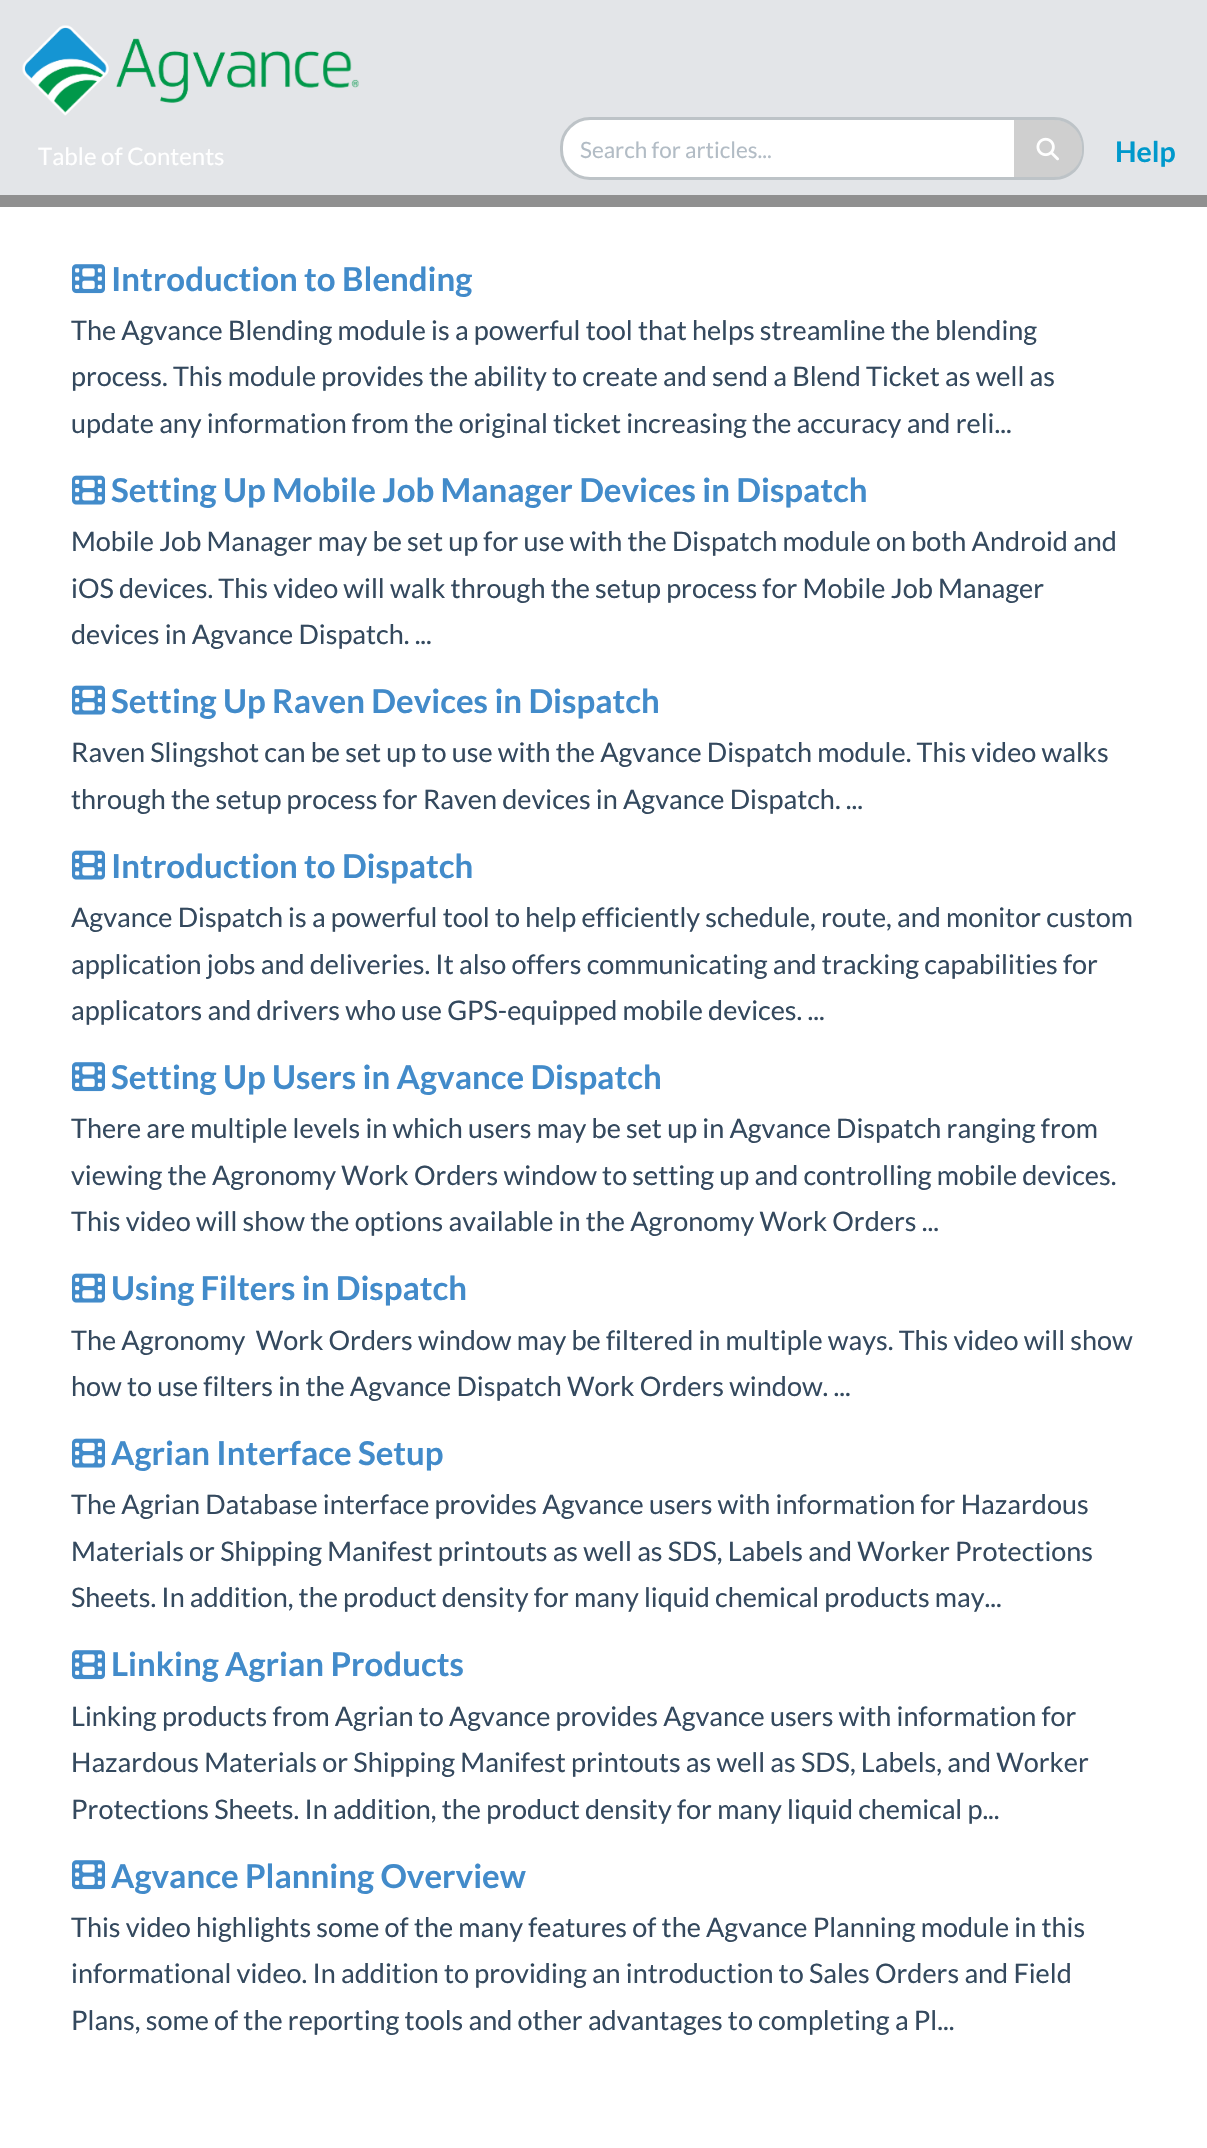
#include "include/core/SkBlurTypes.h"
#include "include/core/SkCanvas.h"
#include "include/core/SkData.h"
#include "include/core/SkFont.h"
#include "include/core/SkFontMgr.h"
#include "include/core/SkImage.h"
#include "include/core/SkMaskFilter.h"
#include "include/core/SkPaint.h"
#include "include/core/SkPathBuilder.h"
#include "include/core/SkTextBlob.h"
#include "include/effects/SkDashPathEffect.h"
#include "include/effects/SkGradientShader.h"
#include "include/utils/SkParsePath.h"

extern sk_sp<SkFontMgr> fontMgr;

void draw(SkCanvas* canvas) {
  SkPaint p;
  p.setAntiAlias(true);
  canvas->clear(SK_ColorWHITE);
  p.setColor(SkColorSetRGB(227, 229, 232));
  canvas->drawRect(SkRect::MakeLTRB(0, 0, 1207, 195), p);
  p.setColor(SkColorSetRGB(144, 144, 144));
  canvas->drawRect(SkRect::MakeLTRB(0, 195, 1207, 207), p);
  canvas->drawImageRect(SkImages::DeferredFromEncodedData(SkData::MakeFromFileName("images/1.png")), SkRect::MakeLTRB(22, 25, 359, 116), SkSamplingOptions());
  p.setColor(SK_ColorWHITE);
  canvas->drawPath(SkPathBuilder().moveTo(590, 118.5f).lineTo(1017.5f, 118.5f).lineTo(1017.5f, 178.5f).lineTo(590, 178.5f).cubicTo(574.5f, 178.5f, 561.5f, 165.5f, 561.5f, 150).lineTo(561.5f, 147).cubicTo(561.5f, 131.5f, 574.5f, 118.5f, 590, 118.5f).close().detach(), p);
  p.setStyle(SkPaint::kStroke_Style);
  p.setStrokeWidth(3);
  p.setColor(SkColorSetRGB(189, 195, 199));
  canvas->drawPath(SkPathBuilder().moveTo(590, 118.5f).lineTo(1017.5f, 118.5f).lineTo(1017.5f, 178.5f).lineTo(590, 178.5f).cubicTo(574.5f, 178.5f, 561.5f, 165.5f, 561.5f, 150).lineTo(561.5f, 147).cubicTo(561.5f, 131.5f, 574.5f, 118.5f, 590, 118.5f).close().detach(), p);
  p.setStyle(SkPaint::kFill_Style);
  p.setColor(SkColorSetRGB(207, 207, 207));
  canvas->drawPath(SkPathBuilder().moveTo(1014, 120).lineTo(1055, 120).cubicTo(1070, 120, 1082, 132, 1082, 147).lineTo(1082, 150).cubicTo(1082, 165, 1070, 177, 1055, 177).lineTo(1014, 177).close().detach(), p);
  p.setColor(SkColorSetRGB(189, 195, 199));
  canvas->drawPath(SkPathBuilder(SkPathFillType::kEvenOdd).moveTo(1014, 117).lineTo(1054, 117).cubicTo(1071, 117, 1084, 130, 1084, 147).lineTo(1084, 150).cubicTo(1084, 167, 1071, 180, 1054, 180).lineTo(1014, 180).close().moveTo(1014, 120).lineTo(1054, 120).cubicTo(1069, 120, 1082, 132, 1082, 147).lineTo(1082, 150).cubicTo(1082, 165, 1069, 177, 1054, 177).lineTo(1014, 177).close().detach(), p);
  canvas->drawImageRect(SkImages::DeferredFromEncodedData(SkData::MakeFromFileName("images/2.png")), SkRect::MakeLTRB(1036, 137, 1059, 161), SkSamplingOptions());
  canvas->drawImageRect(SkImages::DeferredFromEncodedData(SkData::MakeFromFileName("images/3.png")), SkRect::MakeLTRB(72, 264, 105, 294), SkSamplingOptions());
  canvas->drawImageRect(SkImages::DeferredFromEncodedData(SkData::MakeFromFileName("images/4.png")), SkRect::MakeLTRB(72, 475, 105, 505), SkSamplingOptions());
  canvas->drawImageRect(SkImages::DeferredFromEncodedData(SkData::MakeFromFileName("images/4.png")), SkRect::MakeLTRB(72, 685, 105, 715), SkSamplingOptions());
  canvas->drawImageRect(SkImages::DeferredFromEncodedData(SkData::MakeFromFileName("images/4.png")), SkRect::MakeLTRB(72, 850, 105, 880), SkSamplingOptions());
  canvas->drawImageRect(SkImages::DeferredFromEncodedData(SkData::MakeFromFileName("images/3.png")), SkRect::MakeLTRB(72, 1062, 105, 1092), SkSamplingOptions());
  canvas->drawImageRect(SkImages::DeferredFromEncodedData(SkData::MakeFromFileName("images/4.png")), SkRect::MakeLTRB(72, 1273, 105, 1303), SkSamplingOptions());
  canvas->drawImageRect(SkImages::DeferredFromEncodedData(SkData::MakeFromFileName("images/4.png")), SkRect::MakeLTRB(72, 1438, 105, 1468), SkSamplingOptions());
  canvas->drawImageRect(SkImages::DeferredFromEncodedData(SkData::MakeFromFileName("images/3.png")), SkRect::MakeLTRB(72, 1650, 105, 1680), SkSamplingOptions());
  canvas->drawImageRect(SkImages::DeferredFromEncodedData(SkData::MakeFromFileName("images/3.png")), SkRect::MakeLTRB(72, 1860, 105, 1890), SkSamplingOptions());
  SkFont font1(fontMgr->matchFamilyStyle("Lato", SkFontStyle::Normal()), 24);
  font1.setSubpixel(true);
  p.setColor(SK_ColorWHITE);
  canvas->drawString("Table of Contents", 38, 165, font1, p);
  SkFont font2(fontMgr->matchFamilyStyle("Lato", SkFontStyle::Normal()), 22.5f);
  font2.setSubpixel(true);
  p.setColor(SkColorSetRGB(178, 188, 197));
  canvas->drawString("Search for articles...", 580, 158, font2, p);
  SkFont font3(fontMgr->matchFamilyStyle("Lato", SkFontStyle::Bold()), 28.5f);
  font3.setSubpixel(true);
  p.setColor(SkColorSetRGB(0, 153, 204));
  canvas->drawString("Help", 1115, 162, font3, p);
  SkFont font4(fontMgr->matchFamilyStyle("Lato", SkFontStyle::Bold()), 33);
  font4.setSubpixel(true);
  p.setColor(SkColorSetRGB(66, 139, 202));
  canvas->drawString("Introduction to Blending", 111, 291, font4, p);
  SkFont font5(fontMgr->matchFamilyStyle("Lato", SkFontStyle::Normal()), 27);
  font5.setSubpixel(true);
  p.setColor(SkColorSetRGB(52, 73, 94));
  canvas->drawString("The Agvance Blending module is a powerful tool that helps streamline the blending", 71, 340, font5, p);
  canvas->drawString("process. This module provides the ability to create and send a Blend Ticket as well as", 71, 386, font5, p);
  canvas->drawString("update any information from the original ticket increasing the accuracy and reli...", 71, 433, font5, p);
  p.setColor(SkColorSetRGB(66, 139, 202));
  canvas->drawString("Setting Up Mobile Job Manager Devices in Dispatch", 111, 502, font4, p);
  p.setColor(SkColorSetRGB(52, 73, 94));
  canvas->drawString("Mobile Job Manager may be set up for use with the Dispatch module on both Android and", 71, 551, font5, p);
  canvas->drawString("iOS devices. This video will walk through the setup process for Mobile Job Manager", 71, 598, font5, p);
  canvas->drawString("devices in Agvance Dispatch. ...", 71, 644, font5, p);
  p.setColor(SkColorSetRGB(66, 139, 202));
  canvas->drawString("Setting Up Raven Devices in Dispatch", 111, 713, font4, p);
  p.setColor(SkColorSetRGB(52, 73, 94));
  canvas->drawString("Raven Slingshot can be set up to use with the Agvance Dispatch module. This video walks", 71, 762, font5, p);
  canvas->drawString("through the setup process for Raven devices in Agvance Dispatch. ...", 71, 809, font5, p);
  p.setColor(SkColorSetRGB(66, 139, 202));
  canvas->drawString("Introduction to Dispatch", 111, 878, font4, p);
  p.setColor(SkColorSetRGB(52, 73, 94));
  canvas->drawString("Agvance Dispatch is a powerful tool to help efficiently schedule, route, and monitor custom", 71, 927, font5, p);
  canvas->drawString("application jobs and deliveries. It also offers communicating and tracking capabilities for", 71, 974, font5, p);
  canvas->drawString("applicators and drivers who use GPS-equipped mobile devices. ...", 71, 1020, font5, p);
  p.setColor(SkColorSetRGB(66, 139, 202));
  canvas->drawString("Setting Up Users in Agvance Dispatch", 111, 1089, font4, p);
  p.setColor(SkColorSetRGB(52, 73, 94));
  canvas->drawString("There are multiple levels in which users may be set up in Agvance Dispatch ranging from", 71, 1138, font5, p);
  canvas->drawString("viewing the Agronomy Work Orders window to setting up and controlling mobile devices.", 71, 1185, font5, p);
  canvas->drawString("This video will show the options available in the Agronomy Work Orders ...", 71, 1231, font5, p);
  p.setColor(SkColorSetRGB(66, 139, 202));
  canvas->drawString("Using Filters in Dispatch", 111, 1300, font4, p);
  p.setColor(SkColorSetRGB(52, 73, 94));
  canvas->drawString("The Agronomy  Work Orders window may be filtered in multiple ways. This video will show", 71, 1350, font5, p);
  canvas->drawString("how to use filters in the Agvance Dispatch Work Orders window. ...", 71, 1396, font5, p);
  p.setColor(SkColorSetRGB(66, 139, 202));
  canvas->drawString("Agrian Interface Setup", 111, 1465, font4, p);
  p.setColor(SkColorSetRGB(52, 73, 94));
  canvas->drawString("The Agrian Database interface provides Agvance users with information for Hazardous", 71, 1514, font5, p);
  canvas->drawString("Materials or Shipping Manifest printouts as well as SDS, Labels and Worker Protections", 71, 1561, font5, p);
  canvas->drawString("Sheets. In addition, the product density for many liquid chemical products may...", 71, 1607, font5, p);
  p.setColor(SkColorSetRGB(66, 139, 202));
  canvas->drawString("Linking Agrian Products", 111, 1676, font4, p);
  p.setColor(SkColorSetRGB(52, 73, 94));
  canvas->drawString("Linking products from Agrian to Agvance provides Agvance users with information for", 71, 1726, font5, p);
  canvas->drawString("Hazardous Materials or Shipping Manifest printouts as well as SDS, Labels, and Worker", 71, 1772, font5, p);
  canvas->drawString("Protections Sheets. In addition, the product density for many liquid chemical p...", 71, 1819, font5, p);
  p.setColor(SkColorSetRGB(66, 139, 202));
  canvas->drawString("Agvance Planning Overview", 111, 1888, font4, p);
  p.setColor(SkColorSetRGB(52, 73, 94));
  canvas->drawString("This video highlights some of the many features of the Agvance Planning module in this", 71, 1937, font5, p);
  canvas->drawString("informational video. In addition to providing an introduction to Sales Orders and Field", 71, 1983, font5, p);
  canvas->drawString("Plans, some of the reporting tools and other advantages to completing a Pl...", 71, 2030, font5, p);
}
